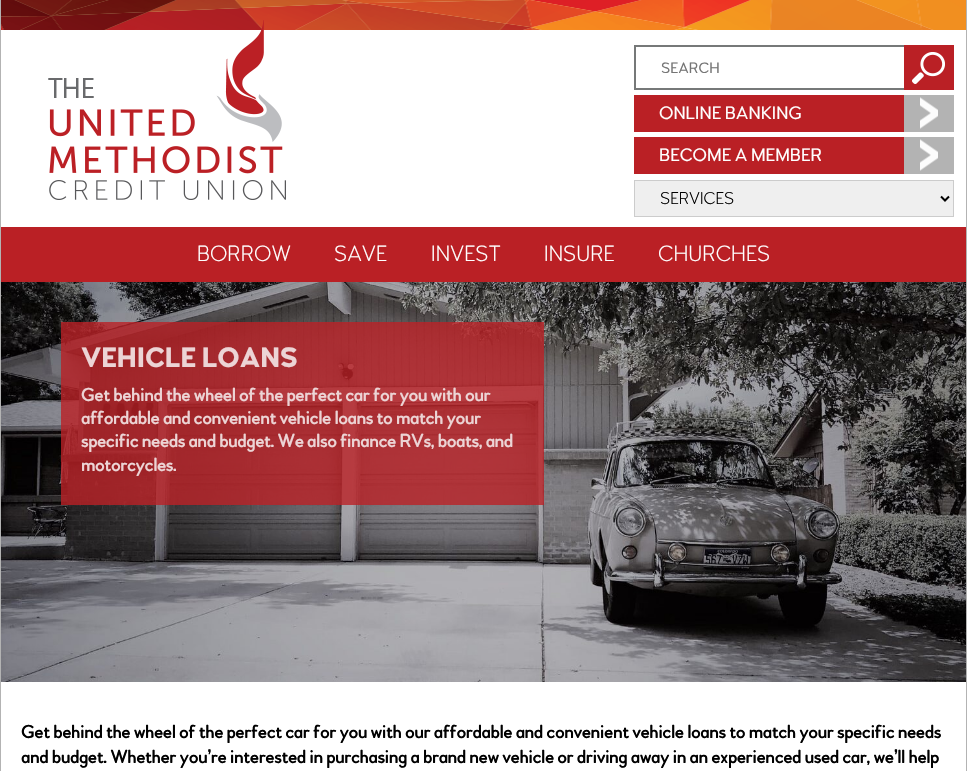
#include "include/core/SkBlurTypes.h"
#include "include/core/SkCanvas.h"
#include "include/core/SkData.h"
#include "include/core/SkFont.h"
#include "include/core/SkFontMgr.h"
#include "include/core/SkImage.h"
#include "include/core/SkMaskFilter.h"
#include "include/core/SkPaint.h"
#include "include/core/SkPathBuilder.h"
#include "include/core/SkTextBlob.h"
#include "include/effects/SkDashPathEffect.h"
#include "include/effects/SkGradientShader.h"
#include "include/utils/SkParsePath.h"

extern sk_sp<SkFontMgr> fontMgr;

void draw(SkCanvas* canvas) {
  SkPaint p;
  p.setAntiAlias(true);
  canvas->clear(SK_ColorWHITE);
  p.setColor(SkColorSetRGB(179, 179, 179));
  canvas->drawRect(SkRect::MakeLTRB(966, 0, 967, 771), p);
  canvas->drawRect(SkRect::MakeLTRB(0, 0, 1, 771), p);
  canvas->drawImageRect(SkImages::DeferredFromEncodedData(SkData::MakeFromFileName("images/1.png")), SkRect::MakeLTRB(1, 0, 966, 30), SkSamplingOptions());
  canvas->drawImageRect(SkImages::DeferredFromEncodedData(SkData::MakeFromFileName("images/2.png")), SkRect::MakeLTRB(48, 20, 286, 200), SkSamplingOptions());
  p.setStyle(SkPaint::kStroke_Style);
  p.setStrokeWidth(2);
  p.setColor(SkColorSetRGB(118, 120, 120));
  canvas->drawRect(SkRect::MakeLTRB(635, 46, 953, 89), p);
  p.setStyle(SkPaint::kFill_Style);
  p.setColor(SkColorSetRGB(186, 32, 37));
  canvas->drawRect(SkRect::MakeLTRB(904, 45, 954, 90), p);
  canvas->drawImageRect(SkImages::DeferredFromEncodedData(SkData::MakeFromFileName("images/3.png")), SkRect::MakeLTRB(912, 52, 945, 84), SkSamplingOptions());
  canvas->drawRect(SkRect::MakeLTRB(634, 95, 904, 132), p);
  p.setColor(SkColorSetRGB(179, 179, 179));
  canvas->drawRect(SkRect::MakeLTRB(904, 95, 954, 132), p);
  canvas->drawImageRect(SkImages::DeferredFromEncodedData(SkData::MakeFromFileName("images/4.png")), SkRect::MakeLTRB(920, 97, 938, 129), SkSamplingOptions());
  p.setColor(SkColorSetRGB(186, 32, 37));
  canvas->drawRect(SkRect::MakeLTRB(634, 137, 904, 174), p);
  p.setColor(SkColorSetRGB(179, 179, 179));
  canvas->drawRect(SkRect::MakeLTRB(904, 137, 954, 174), p);
  canvas->drawImageRect(SkImages::DeferredFromEncodedData(SkData::MakeFromFileName("images/4.png")), SkRect::MakeLTRB(920, 139, 938, 171), SkSamplingOptions());
  p.setColor(SkColorSetRGB(239, 239, 239));
  canvas->drawRect(SkRect::MakeLTRB(634.5f, 180.5f, 953.5f, 216.5f), p);
  p.setStyle(SkPaint::kStroke_Style);
  p.setStrokeWidth(1);
  p.setColor(SkColorSetRGB(204, 204, 204));
  canvas->drawRect(SkRect::MakeLTRB(634.5f, 180.5f, 953.5f, 216.5f), p);
  p.setStrokeWidth(2);
  p.setColor(SK_ColorBLACK);
  canvas->drawPath(SkPathBuilder().moveTo(941, 196.5f).lineTo(945, 200.5f).lineTo(949, 196.5f).detach(), p);
  p.setStyle(SkPaint::kFill_Style);
  p.setColor(SkColorSetRGB(186, 32, 37));
  canvas->drawRect(SkRect::MakeLTRB(1, 227, 966, 282), p);
  canvas->drawImageRect(SkImages::DeferredFromEncodedData(SkData::MakeFromFileName("images/5.png")), SkRect::MakeLTRB(1, 282, 966, 682), SkSamplingOptions());
  p.setColor(SkColorSetARGB(204, 186, 32, 37));
  canvas->drawRect(SkRect::MakeLTRB(61, 322, 544, 505), p);
  SkFont font1(fontMgr->matchFamilyStyle("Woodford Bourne", SkFontStyle::Normal()), 15);
  font1.setSubpixel(true);
  p.setColor(SkColorSetRGB(117, 117, 117));
  canvas->drawString("SEARCH", 661, 73, font1, p);
  SkFont font2(fontMgr->matchFamilyStyle("Woodford Bourne", SkFontStyle::Normal()), 18);
  font2.setSubpixel(true);
  p.setColor(SK_ColorWHITE);
  canvas->drawString("ONLINE BANKING", 659, 119, font2, p);
  canvas->drawString("BECOME A MEMBER", 659, 161, font2, p);
  SkFont font3(fontMgr->matchFamilyStyle("Woodford Bourne", SkFontStyle(200, SkFontStyle::kNormal_Width, SkFontStyle::kUpright_Slant)), 17);
  font3.setSubpixel(true);
  p.setColor(SK_ColorBLACK);
  canvas->drawString("SERVICES", 660, 204, font3, p);
  SkFont font4(fontMgr->matchFamilyStyle("Woodford Bourne", SkFontStyle(200, SkFontStyle::kNormal_Width, SkFontStyle::kUpright_Slant)), 22);
  font4.setSubpixel(true);
  p.setColor(SK_ColorWHITE);
  canvas->drawString("BORROW", 197, 261, font4, p);
  canvas->drawString("SAVE", 334, 261, font4, p);
  canvas->drawString("INVEST", 431, 261, font4, p);
  canvas->drawString("INSURE", 544, 261, font4, p);
  canvas->drawString("CHURCHES", 658, 261, font4, p);
  SkFont font5(fontMgr->matchFamilyStyle("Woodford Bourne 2", SkFontStyle::Bold()), 28);
  font5.setSubpixel(true);
  p.setColor(SkColorSetRGB(236, 212, 213));
  canvas->drawString("VEHICLE LOANS", 81, 367, font5, p);
  SkFont font6(fontMgr->matchFamilyStyle("Woodford Bourne", SkFontStyle::Bold()), 18);
  font6.setSubpixel(true);
  canvas->drawString("Get behind the wheel of the perfect car for you with our", 81, 401, font6, p);
  canvas->drawString("affordable and convenient vehicle loans to match your", 81, 424, font6, p);
  canvas->drawString("specific needs and budget. We also finance RVs, boats, and", 81, 447, font6, p);
  canvas->drawString("motorcycles.", 81, 471, font6, p);
  p.setColor(SK_ColorBLACK);
  canvas->drawString("Get behind the wheel of the perfect car for you with our affordable and convenient vehicle loans to match your specific needs", 21, 738, font6, p);
  canvas->drawString("and budget. Whether you’re interested in purchasing a brand new vehicle or driving away in an experienced used car, we’ll help", 21, 763, font6, p);
}
